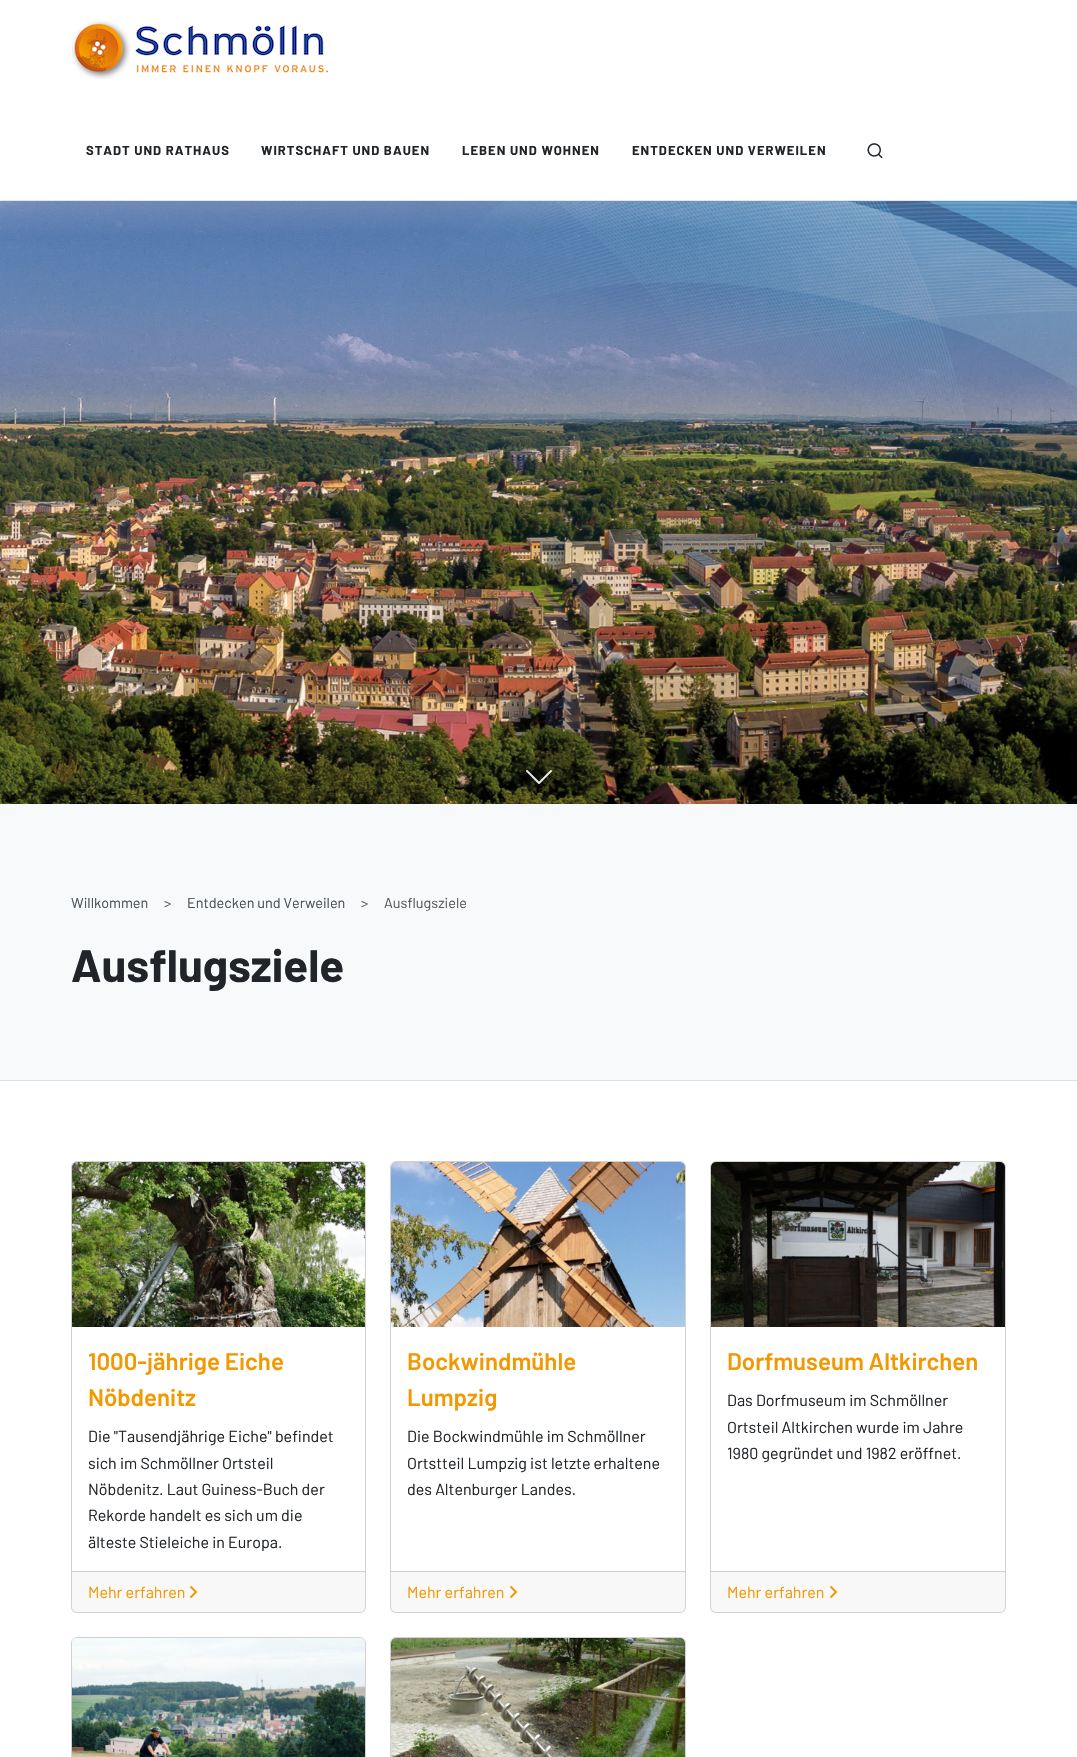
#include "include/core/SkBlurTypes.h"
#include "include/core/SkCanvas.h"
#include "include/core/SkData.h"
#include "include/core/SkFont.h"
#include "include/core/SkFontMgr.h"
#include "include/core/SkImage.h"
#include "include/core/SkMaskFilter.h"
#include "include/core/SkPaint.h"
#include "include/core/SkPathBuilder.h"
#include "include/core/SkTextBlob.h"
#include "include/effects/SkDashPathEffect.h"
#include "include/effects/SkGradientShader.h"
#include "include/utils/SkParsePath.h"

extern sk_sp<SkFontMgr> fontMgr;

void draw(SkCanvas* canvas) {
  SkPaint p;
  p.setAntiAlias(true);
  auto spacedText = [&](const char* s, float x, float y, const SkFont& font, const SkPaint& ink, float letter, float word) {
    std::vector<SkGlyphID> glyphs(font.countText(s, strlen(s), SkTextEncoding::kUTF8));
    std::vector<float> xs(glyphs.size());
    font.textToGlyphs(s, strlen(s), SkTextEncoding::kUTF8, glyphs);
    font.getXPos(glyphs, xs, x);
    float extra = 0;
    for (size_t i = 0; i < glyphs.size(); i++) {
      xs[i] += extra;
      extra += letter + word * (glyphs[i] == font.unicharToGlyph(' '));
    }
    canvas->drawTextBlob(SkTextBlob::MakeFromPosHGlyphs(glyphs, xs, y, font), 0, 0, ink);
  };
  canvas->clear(SK_ColorWHITE);
  p.setColor(SkColorSetRGB(230, 230, 230));
  canvas->drawRect(SkRect::MakeLTRB(0, 200, 1077, 201), p);
  canvas->drawImageRect(SkImages::DeferredFromEncodedData(SkData::MakeFromFileName("images/1.png")), SkRect::MakeLTRB(72, 21, 328, 79), SkSamplingOptions());
  canvas->drawImageRect(SkImages::DeferredFromEncodedData(SkData::MakeFromFileName("images/2.png")), SkRect::MakeLTRB(867, 143, 883, 159), SkSamplingOptions());
  canvas->drawImageRect(SkImages::DeferredFromEncodedData(SkData::MakeFromFileName("images/3.png")), SkRect::MakeLTRB(0, 201, 1077, 804), SkSamplingOptions());
  canvas->drawImageRect(SkImages::DeferredFromEncodedData(SkData::MakeFromFileName("images/4.png")), SkRect::MakeLTRB(526, 770, 552, 784), SkSamplingOptions());
  p.setColor(SkColorSetRGB(248, 249, 250));
  canvas->drawRect(SkRect::MakeLTRB(0, 804, 1077, 1080), p);
  p.setColor(SkColorSetRGB(223, 224, 225));
  canvas->drawRect(SkRect::MakeLTRB(0, 1080, 1077, 1081), p);
  p.setStyle(SkPaint::kStroke_Style);
  p.setStrokeWidth(1);
  p.setColor(SkColorSetRGB(210, 210, 210));
  canvas->drawRoundRect(SkRect::MakeLTRB(71.5f, 1161.5f, 365.5f, 1612.5f), 5.5f, 5.5f, p);
  canvas->drawImageRect(SkImages::DeferredFromEncodedData(SkData::MakeFromFileName("images/5.png")), SkRect::MakeLTRB(72, 1162, 365, 1327), SkSamplingOptions());
  p.setStyle(SkPaint::kFill_Style);
  p.setColor(SkColorSetARGB(8, 33, 37, 41));
  canvas->drawRect(SkRect::MakeLTRB(72, 1572, 365, 1612), p);
  p.setColor(SkColorSetRGB(205, 205, 205));
  canvas->drawRect(SkRect::MakeLTRB(72, 1571, 365, 1572), p);
  canvas->drawImageRect(SkImages::DeferredFromEncodedData(SkData::MakeFromFileName("images/6.png")), SkRect::MakeLTRB(190, 1586, 197, 1598), SkSamplingOptions());
  p.setStyle(SkPaint::kStroke_Style);
  p.setColor(SkColorSetRGB(210, 210, 210));
  canvas->drawRoundRect(SkRect::MakeLTRB(390.5f, 1161.5f, 685.5f, 1612.5f), 5.5f, 5.5f, p);
  canvas->drawImageRect(SkImages::DeferredFromEncodedData(SkData::MakeFromFileName("images/7.png")), SkRect::MakeLTRB(391, 1162, 685, 1327), SkSamplingOptions());
  p.setStyle(SkPaint::kFill_Style);
  p.setColor(SkColorSetARGB(8, 33, 37, 41));
  canvas->drawRect(SkRect::MakeLTRB(391, 1572, 685, 1612), p);
  p.setColor(SkColorSetRGB(205, 205, 205));
  canvas->drawRect(SkRect::MakeLTRB(391, 1571, 685, 1572), p);
  canvas->drawImageRect(SkImages::DeferredFromEncodedData(SkData::MakeFromFileName("images/6.png")), SkRect::MakeLTRB(510, 1586, 517, 1598), SkSamplingOptions());
  p.setStyle(SkPaint::kStroke_Style);
  p.setColor(SkColorSetRGB(210, 210, 210));
  canvas->drawRoundRect(SkRect::MakeLTRB(710.5f, 1161.5f, 1005.5f, 1612.5f), 5.5f, 5.5f, p);
  canvas->drawImageRect(SkImages::DeferredFromEncodedData(SkData::MakeFromFileName("images/8.png")), SkRect::MakeLTRB(711, 1162, 1005, 1327), SkSamplingOptions());
  p.setStyle(SkPaint::kFill_Style);
  p.setColor(SkColorSetARGB(8, 33, 37, 41));
  canvas->drawRect(SkRect::MakeLTRB(711, 1572, 1005, 1612), p);
  p.setColor(SkColorSetRGB(205, 205, 205));
  canvas->drawRect(SkRect::MakeLTRB(711, 1571, 1005, 1572), p);
  canvas->drawImageRect(SkImages::DeferredFromEncodedData(SkData::MakeFromFileName("images/6.png")), SkRect::MakeLTRB(830, 1586, 837, 1598), SkSamplingOptions());
  p.setStyle(SkPaint::kStroke_Style);
  p.setColor(SkColorSetRGB(210, 210, 210));
  canvas->drawRoundRect(SkRect::MakeLTRB(71.5f, 1637.5f, 365.5f, 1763.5f), 5.5f, 5.5f, p);
  canvas->drawImageRect(SkImages::DeferredFromEncodedData(SkData::MakeFromFileName("images/9.png")), SkRect::MakeLTRB(72, 1638, 365, 1757), SkSamplingOptions());
  canvas->drawRoundRect(SkRect::MakeLTRB(390.5f, 1637.5f, 685.5f, 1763.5f), 5.5f, 5.5f, p);
  canvas->drawImageRect(SkImages::DeferredFromEncodedData(SkData::MakeFromFileName("images/10.png")), SkRect::MakeLTRB(391, 1638, 685, 1757), SkSamplingOptions());
  SkFont font1(fontMgr->matchFamilyStyle("Barlow", SkFontStyle::Bold()), 13);
  font1.setSubpixel(true);
  p.setStyle(SkPaint::kFill_Style);
  p.setColor(SkColorSetRGB(33, 37, 41));
  spacedText("STADT UND RATHAUS", 86, 155, font1, p, 1, 0);
  spacedText("WIRTSCHAFT UND BAUEN", 261, 155, font1, p, 1, 0);
  spacedText("LEBEN UND WOHNEN", 462, 155, font1, p, 1, 0);
  spacedText("ENTDECKEN UND VERWEILEN", 632, 155, font1, p, 1, 0);
  SkFont font2(fontMgr->matchFamilyStyle("Barlow", SkFontStyle::Normal()), 14.4f);
  font2.setSubpixel(true);
  p.setColor(SkColorSetRGB(73, 80, 87));
  canvas->drawString("Willkommen", 71, 908, font2, p);
  p.setColor(SkColorSetRGB(87, 90, 93));
  canvas->drawString(">", 164, 908, font2, p);
  p.setColor(SkColorSetRGB(73, 80, 87));
  canvas->drawString("Entdecken und Verweilen", 187, 908, font2, p);
  p.setColor(SkColorSetRGB(87, 90, 93));
  canvas->drawString(">", 361, 908, font2, p);
  canvas->drawString("Ausflugsziele", 384, 908, font2, p);
  SkFont font3(fontMgr->matchFamilyStyle("Barlow", SkFontStyle::Bold()), 45.5f);
  font3.setSubpixel(true);
  p.setColor(SkColorSetRGB(33, 37, 41));
  canvas->drawString("Ausflugsziele", 71, 982, font3, p);
  SkFont font4(fontMgr->matchFamilyStyle("Barlow", SkFontStyle(600, SkFontStyle::kNormal_Width, SkFontStyle::kUpright_Slant)), 24);
  font4.setSubpixel(true);
  p.setColor(SkColorSetRGB(243, 152, 0));
  canvas->drawString("1000-jährige Eiche", 88, 1370, font4, p);
  canvas->drawString("Nöbdenitz", 88, 1406, font4, p);
  SkFont font5(fontMgr->matchFamilyStyle("Barlow", SkFontStyle::Normal()), 16);
  font5.setSubpixel(true);
  p.setColor(SkColorSetRGB(33, 37, 41));
  canvas->drawString("Die \"Tausendjährige Eiche\" befindet", 88, 1442, font5, p);
  canvas->drawString("sich im Schmöllner Ortsteil", 88, 1469, font5, p);
  canvas->drawString("Nöbdenitz. Laut Guiness-Buch der", 88, 1495, font5, p);
  canvas->drawString("Rekorde handelt es sich um die", 88, 1521, font5, p);
  canvas->drawString("älteste Stieleiche in Europa.", 88, 1548, font5, p);
  p.setColor(SkColorSetRGB(243, 152, 0));
  canvas->drawString("Mehr erfahren", 88, 1598, font5, p);
  canvas->drawString("Bockwindmühle", 407, 1370, font4, p);
  canvas->drawString("Lumpzig", 407, 1406, font4, p);
  p.setColor(SkColorSetRGB(33, 37, 41));
  canvas->drawString("Die Bockwindmühle im Schmöllner", 407, 1442, font5, p);
  canvas->drawString("Ortstteil Lumpzig ist letzte erhaltene", 407, 1469, font5, p);
  canvas->drawString("des Altenburger Landes.", 407, 1495, font5, p);
  p.setColor(SkColorSetRGB(243, 152, 0));
  canvas->drawString("Mehr erfahren", 407, 1598, font5, p);
  canvas->drawString("Dorfmuseum Altkirchen", 727, 1370, font4, p);
  p.setColor(SkColorSetRGB(33, 37, 41));
  canvas->drawString("Das Dorfmuseum im Schmöllner", 727, 1406, font5, p);
  canvas->drawString("Ortsteil Altkirchen wurde im Jahre", 727, 1433, font5, p);
  canvas->drawString("1980 gegründet und 1982 eröffnet.", 727, 1459, font5, p);
  p.setColor(SkColorSetRGB(243, 152, 0));
  canvas->drawString("Mehr erfahren", 727, 1598, font5, p);
}
